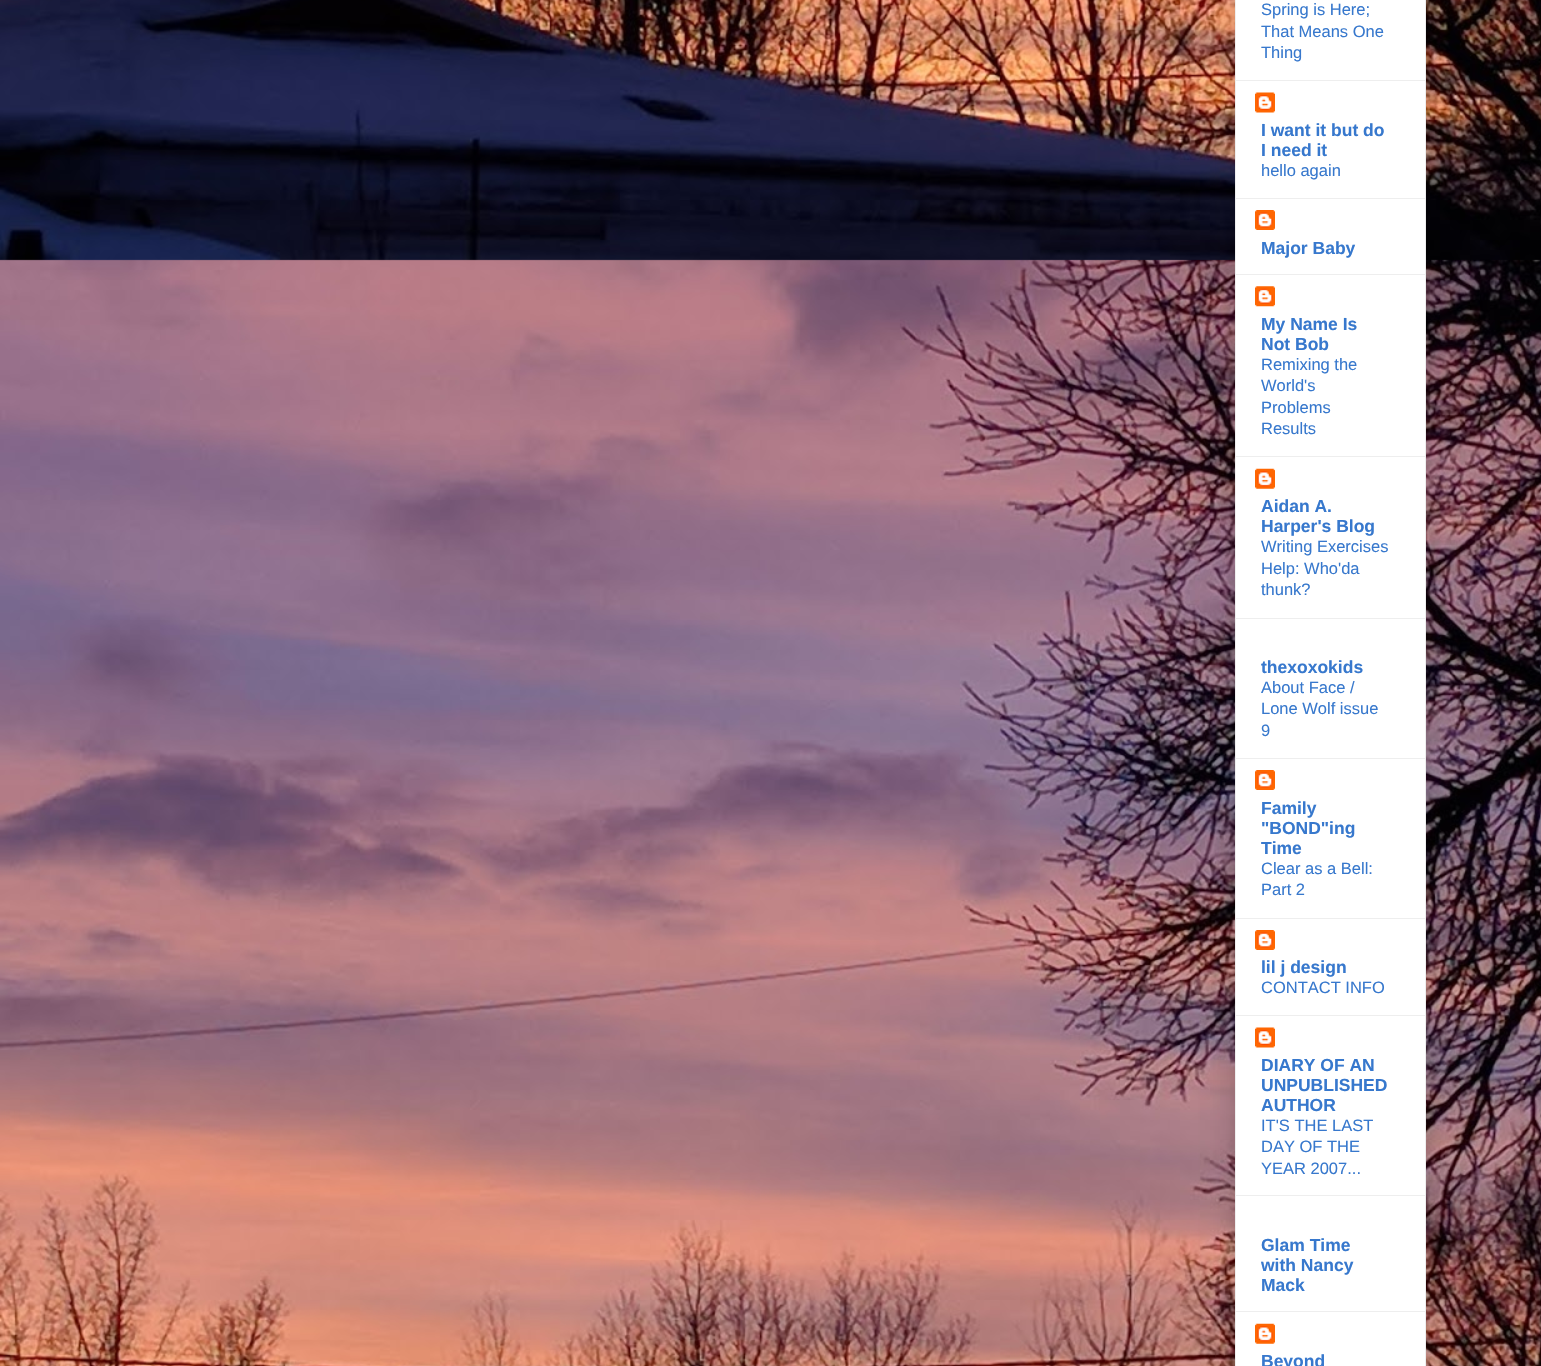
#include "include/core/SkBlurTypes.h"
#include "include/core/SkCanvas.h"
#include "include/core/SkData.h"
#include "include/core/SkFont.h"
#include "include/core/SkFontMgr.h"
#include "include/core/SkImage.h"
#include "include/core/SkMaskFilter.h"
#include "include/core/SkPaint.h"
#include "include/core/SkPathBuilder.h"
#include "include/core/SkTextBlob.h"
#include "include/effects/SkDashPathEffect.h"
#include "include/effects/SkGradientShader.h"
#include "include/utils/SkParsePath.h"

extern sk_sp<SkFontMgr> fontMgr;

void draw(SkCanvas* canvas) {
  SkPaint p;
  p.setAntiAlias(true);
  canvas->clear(SK_ColorWHITE);
  canvas->drawImageRect(SkImages::DeferredFromEncodedData(SkData::MakeFromFileName("images/1.png")), SkRect::MakeLTRB(0, 0, 1541, 1366), SkSamplingOptions());
  p.setColor(SkColorSetARGB(51, 0, 0, 0));
  p.setMaskFilter(SkMaskFilter::MakeBlur(kNormal_SkBlurStyle, 12.5f));
  canvas->drawRect(SkRect::MakeLTRB(1235, -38, 1426, 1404), p);
  p.setMaskFilter(nullptr);
  p.setColor(SK_ColorWHITE);
  canvas->drawRect(SkRect::MakeLTRB(1235.5f, -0.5f, 1425.5f, 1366.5f), p);
  p.setStyle(SkPaint::kStroke_Style);
  p.setStrokeWidth(1);
  p.setColor(SkColorSetRGB(238, 238, 238));
  canvas->drawRect(SkRect::MakeLTRB(1235.5f, -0.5f, 1425.5f, 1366.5f), p);
  p.setStyle(SkPaint::kFill_Style);
  canvas->drawRect(SkRect::MakeLTRB(1236, 80, 1425, 81), p);
  canvas->drawImageRect(SkImages::DeferredFromEncodedData(SkData::MakeFromFileName("images/2.png")), SkRect::MakeLTRB(1255, 92, 1275, 113), SkSamplingOptions());
  canvas->drawRect(SkRect::MakeLTRB(1236, 198, 1425, 199), p);
  canvas->drawImageRect(SkImages::DeferredFromEncodedData(SkData::MakeFromFileName("images/3.png")), SkRect::MakeLTRB(1255, 210, 1275, 230), SkSamplingOptions());
  canvas->drawRect(SkRect::MakeLTRB(1236, 274, 1425, 275), p);
  canvas->drawImageRect(SkImages::DeferredFromEncodedData(SkData::MakeFromFileName("images/4.png")), SkRect::MakeLTRB(1255, 286, 1275, 307), SkSamplingOptions());
  canvas->drawRect(SkRect::MakeLTRB(1236, 456, 1425, 457), p);
  canvas->drawImageRect(SkImages::DeferredFromEncodedData(SkData::MakeFromFileName("images/5.png")), SkRect::MakeLTRB(1255, 468, 1275, 489), SkSamplingOptions());
  canvas->drawRect(SkRect::MakeLTRB(1236, 618, 1425, 619), p);
  canvas->drawRect(SkRect::MakeLTRB(1236, 758, 1425, 759), p);
  canvas->drawImageRect(SkImages::DeferredFromEncodedData(SkData::MakeFromFileName("images/3.png")), SkRect::MakeLTRB(1255, 770, 1275, 790), SkSamplingOptions());
  canvas->drawRect(SkRect::MakeLTRB(1236, 918, 1425, 919), p);
  canvas->drawImageRect(SkImages::DeferredFromEncodedData(SkData::MakeFromFileName("images/3.png")), SkRect::MakeLTRB(1255, 930, 1275, 950), SkSamplingOptions());
  canvas->drawRect(SkRect::MakeLTRB(1236, 1015, 1425, 1016), p);
  canvas->drawImageRect(SkImages::DeferredFromEncodedData(SkData::MakeFromFileName("images/2.png")), SkRect::MakeLTRB(1255, 1027, 1275, 1048), SkSamplingOptions());
  canvas->drawRect(SkRect::MakeLTRB(1236, 1195, 1425, 1196), p);
  canvas->drawRect(SkRect::MakeLTRB(1236, 1311, 1425, 1312), p);
  canvas->drawImageRect(SkImages::DeferredFromEncodedData(SkData::MakeFromFileName("images/5.png")), SkRect::MakeLTRB(1255, 1323, 1275, 1344), SkSamplingOptions());
  SkFont font1(fontMgr->matchFamilyStyle("Liberation Sans", SkFontStyle::Normal()), 16.5f);
  font1.setSubpixel(true);
  p.setColor(SkColorSetRGB(55, 120, 205));
  canvas->drawString("Spring is Here;", 1261, 15, font1, p);
  canvas->drawString("That Means One", 1261, 37, font1, p);
  canvas->drawString("Thing", 1261, 58, font1, p);
  SkFont font2(fontMgr->matchFamilyStyle("Liberation Sans", SkFontStyle::Bold()), 17.5f);
  font2.setSubpixel(true);
  canvas->drawString("I want it but do", 1261, 136, font2, p);
  canvas->drawString("I need it", 1261, 156, font2, p);
  canvas->drawString("hello again", 1261, 176, font1, p);
  canvas->drawString("Major Baby", 1261, 254, font2, p);
  canvas->drawString("My Name Is", 1261, 330, font2, p);
  canvas->drawString("Not Bob", 1261, 350, font2, p);
  canvas->drawString("Remixing the", 1261, 370, font1, p);
  canvas->drawString("World's", 1261, 391, font1, p);
  canvas->drawString("Problems", 1261, 413, font1, p);
  canvas->drawString("Results", 1261, 434, font1, p);
  canvas->drawString("Aidan A.", 1261, 512, font2, p);
  canvas->drawString("Harper's Blog", 1261, 532, font2, p);
  canvas->drawString("Writing Exercises", 1261, 552, font1, p);
  canvas->drawString("Help: Who'da", 1261, 574, font1, p);
  canvas->drawString("thunk?", 1261, 595, font1, p);
  canvas->drawString("thexoxokids", 1261, 673, font2, p);
  canvas->drawString("About Face /", 1261, 693, font1, p);
  canvas->drawString("Lone Wolf issue", 1261, 714, font1, p);
  canvas->drawString("9", 1261, 736, font1, p);
  canvas->drawString("Family", 1261, 814, font2, p);
  canvas->drawString("\"BOND\"ing", 1261, 834, font2, p);
  canvas->drawString("Time", 1261, 854, font2, p);
  canvas->drawString("Clear as a Bell:", 1261, 874, font1, p);
  canvas->drawString("Part 2", 1261, 895, font1, p);
  canvas->drawString("lil j design", 1261, 973, font2, p);
  canvas->drawString("CONTACT INFO", 1261, 993, font1, p);
  canvas->drawString("DIARY OF AN", 1261, 1071, font2, p);
  canvas->drawString("UNPUBLISHED", 1261, 1091, font2, p);
  canvas->drawString("AUTHOR", 1261, 1111, font2, p);
  canvas->drawString("IT'S THE LAST", 1261, 1131, font1, p);
  canvas->drawString("DAY OF THE", 1261, 1152, font1, p);
  canvas->drawString("YEAR 2007...", 1261, 1174, font1, p);
  canvas->drawString("Glam Time", 1261, 1251, font2, p);
  canvas->drawString("with Nancy", 1261, 1271, font2, p);
  canvas->drawString("Mack", 1261, 1291, font2, p);
  canvas->drawString("Beyond", 1261, 1367, font2, p);
}
